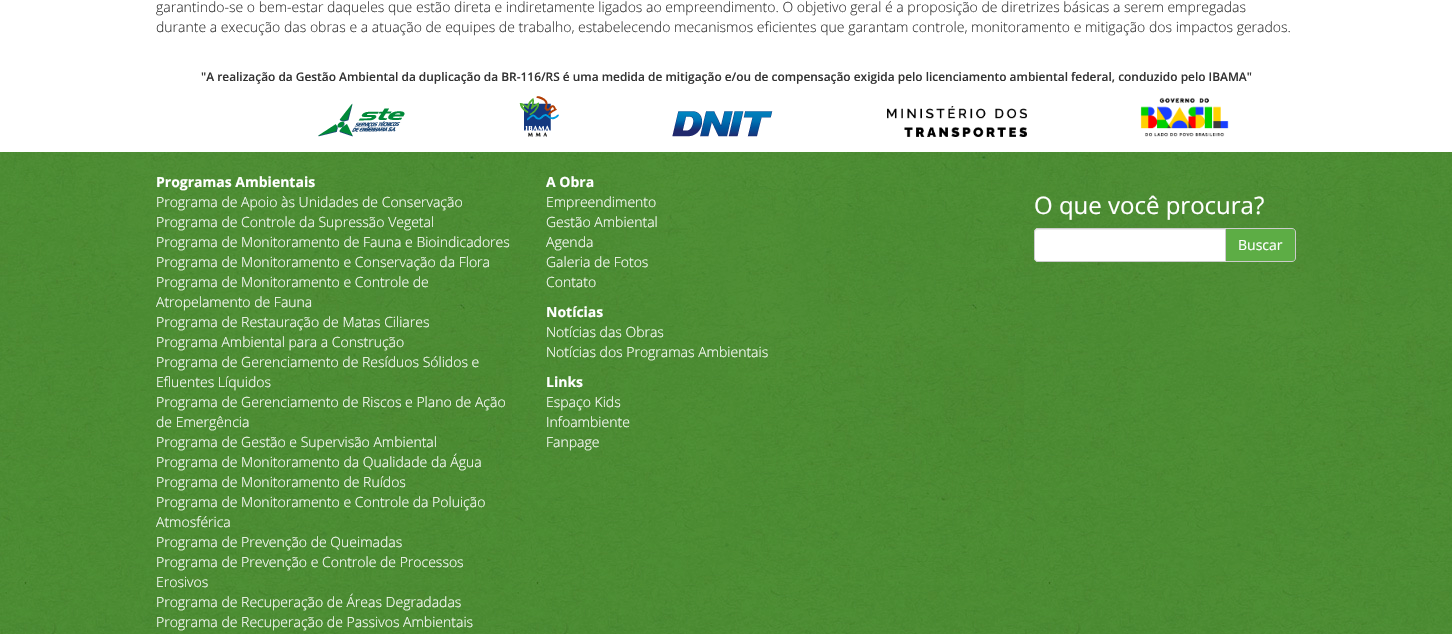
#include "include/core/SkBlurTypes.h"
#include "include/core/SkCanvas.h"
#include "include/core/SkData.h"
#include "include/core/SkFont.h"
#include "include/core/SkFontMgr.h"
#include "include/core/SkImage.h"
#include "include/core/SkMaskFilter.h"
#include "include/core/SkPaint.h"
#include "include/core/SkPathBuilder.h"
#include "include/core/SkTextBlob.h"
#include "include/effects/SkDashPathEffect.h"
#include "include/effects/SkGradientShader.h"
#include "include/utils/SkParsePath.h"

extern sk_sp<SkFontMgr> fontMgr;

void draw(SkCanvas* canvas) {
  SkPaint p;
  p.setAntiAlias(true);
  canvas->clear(SK_ColorWHITE);
  canvas->drawImageRect(SkImages::DeferredFromEncodedData(SkData::MakeFromFileName("images/1.png")), SkRect::MakeLTRB(318, 103, 405, 137), SkSamplingOptions());
  canvas->drawImageRect(SkImages::DeferredFromEncodedData(SkData::MakeFromFileName("images/2.png")), SkRect::MakeLTRB(519, 96, 559, 137), SkSamplingOptions());
  canvas->drawImageRect(SkImages::DeferredFromEncodedData(SkData::MakeFromFileName("images/3.png")), SkRect::MakeLTRB(672, 111, 773, 137), SkSamplingOptions());
  canvas->drawImageRect(SkImages::DeferredFromEncodedData(SkData::MakeFromFileName("images/4.png")), SkRect::MakeLTRB(887, 106, 1027, 137), SkSamplingOptions());
  canvas->drawImageRect(SkImages::DeferredFromEncodedData(SkData::MakeFromFileName("images/5.png")), SkRect::MakeLTRB(1140, 97, 1229, 137), SkSamplingOptions());
  canvas->drawImageRect(SkImages::DeferredFromEncodedData(SkData::MakeFromFileName("images/6.png")), SkRect::MakeLTRB(0, 152, 1452, 634), SkSamplingOptions());
  p.setColor(SkColorSetRGB(93, 173, 69));
  canvas->drawPath(SkPathBuilder().moveTo(1225.5f, 228.5f).lineTo(1292, 228.5f).cubicTo(1294, 228.5f, 1295.5f, 230, 1295.5f, 232).lineTo(1295.5f, 258).cubicTo(1295.5f, 260, 1294, 261.5f, 1292, 261.5f).lineTo(1225.5f, 261.5f).close().detach(), p);
  p.setStyle(SkPaint::kStroke_Style);
  p.setStrokeWidth(1);
  p.setColor(SkColorSetRGB(204, 204, 204));
  canvas->drawPath(SkPathBuilder().moveTo(1225.5f, 228.5f).lineTo(1292, 228.5f).cubicTo(1294, 228.5f, 1295.5f, 230, 1295.5f, 232).lineTo(1295.5f, 258).cubicTo(1295.5f, 260, 1294, 261.5f, 1292, 261.5f).lineTo(1225.5f, 261.5f).close().detach(), p);
  p.setStyle(SkPaint::kFill_Style);
  p.setColor(SK_ColorWHITE);
  canvas->drawPath(SkPathBuilder().moveTo(1038, 228).lineTo(1226, 228).lineTo(1226, 262).lineTo(1038, 262).cubicTo(1036, 262, 1034, 260, 1034, 258).lineTo(1034, 232).cubicTo(1034, 230, 1036, 228, 1038, 228).close().detach(), p);
  p.setColor(SkColorSetRGB(236, 236, 236));
  canvas->drawPath(SkPathBuilder().moveTo(1038, 230).lineTo(1225, 230).lineTo(1225, 229).lineTo(1038, 229).cubicTo(1036, 229, 1035, 231, 1035, 233).cubicTo(1035, 231, 1036, 230, 1038, 230).close().detach(), p);
  p.setStyle(SkPaint::kStroke_Style);
  p.setColor(SkColorSetRGB(204, 204, 204));
  canvas->drawPath(SkPathBuilder().moveTo(1038, 228.5f).lineTo(1225.5f, 228.5f).lineTo(1225.5f, 261.5f).lineTo(1038, 261.5f).cubicTo(1036, 261.5f, 1034.5f, 260, 1034.5f, 258).lineTo(1034.5f, 232).cubicTo(1034.5f, 230, 1036, 228.5f, 1038, 228.5f).close().detach(), p);
  SkFont font1(fontMgr->matchFamilyStyle("Open Sans", SkFontStyle(300, SkFontStyle::kNormal_Width, SkFontStyle::kUpright_Slant)), 14);
  font1.setSubpixel(true);
  p.setStyle(SkPaint::kFill_Style);
  p.setColor(SkColorSetRGB(51, 51, 51));
  canvas->drawString("garantindo-se o bem-estar daqueles que estão direta e indiretamente ligados ao empreendimento. O objetivo geral é a proposição de diretrizes básicas a serem empregadas", 156, 12, font1, p);
  canvas->drawString("durante a execução das obras e a atuação de equipes de trabalho, estabelecendo mecanismos eficientes que garantam controle, monitoramento e mitigação dos impactos gerados.", 156, 32, font1, p);
  SkFont font2(fontMgr->matchFamilyStyle("Open Sans", SkFontStyle(600, SkFontStyle::kNormal_Width, SkFontStyle::kUpright_Slant)), 11.9f);
  font2.setSubpixel(true);
  canvas->drawString("\"A realização da Gestão Ambiental da duplicação da BR-116/RS é uma medida de mitigação e/ou de compensação exigida pelo licenciamento ambiental federal, conduzido pelo IBAMA\"", 201, 81, font2, p);
  SkFont font3(fontMgr->matchFamilyStyle("Open Sans", SkFontStyle::Bold()), 14);
  font3.setSubpixel(true);
  p.setColor(SK_ColorWHITE);
  canvas->drawString("Programas Ambientais", 156, 187, font3, p);
  canvas->drawString("Programa de Apoio às Unidades de Conservação", 156, 207, font1, p);
  canvas->drawString("Programa de Controle da Supressão Vegetal", 156, 227, font1, p);
  canvas->drawString("Programa de Monitoramento de Fauna e Bioindicadores", 156, 247, font1, p);
  canvas->drawString("Programa de Monitoramento e Conservação da Flora", 156, 267, font1, p);
  canvas->drawString("Programa de Monitoramento e Controle de", 156, 287, font1, p);
  canvas->drawString("Atropelamento de Fauna", 156, 307, font1, p);
  canvas->drawString("Programa de Restauração de Matas Ciliares", 156, 327, font1, p);
  canvas->drawString("Programa Ambiental para a Construção", 156, 347, font1, p);
  canvas->drawString("Programa de Gerenciamento de Resíduos Sólidos e", 156, 367, font1, p);
  canvas->drawString("Efluentes Líquidos", 156, 387, font1, p);
  canvas->drawString("Programa de Gerenciamento de Riscos e Plano de Ação", 156, 407, font1, p);
  canvas->drawString("de Emergência", 156, 427, font1, p);
  canvas->drawString("Programa de Gestão e Supervisão Ambiental", 156, 447, font1, p);
  canvas->drawString("Programa de Monitoramento da Qualidade da Água", 156, 467, font1, p);
  canvas->drawString("Programa de Monitoramento de Ruídos", 156, 487, font1, p);
  canvas->drawString("Programa de Monitoramento e Controle da Poluição", 156, 507, font1, p);
  canvas->drawString("Atmosférica", 156, 527, font1, p);
  canvas->drawString("Programa de Prevenção de Queimadas", 156, 547, font1, p);
  canvas->drawString("Programa de Prevenção e Controle de Processos", 156, 567, font1, p);
  canvas->drawString("Erosivos", 156, 587, font1, p);
  canvas->drawString("Programa de Recuperação de Áreas Degradadas", 156, 607, font1, p);
  canvas->drawString("Programa de Recuperação de Passivos Ambientais", 156, 627, font1, p);
  canvas->drawString("A Obra", 546, 187, font3, p);
  canvas->drawString("Empreendimento", 546, 207, font1, p);
  canvas->drawString("Gestão Ambiental", 546, 227, font1, p);
  canvas->drawString("Agenda", 546, 247, font1, p);
  canvas->drawString("Galeria de Fotos", 546, 267, font1, p);
  canvas->drawString("Contato", 546, 287, font1, p);
  canvas->drawString("Notícias", 546, 317, font3, p);
  canvas->drawString("Notícias das Obras", 546, 337, font1, p);
  canvas->drawString("Notícias dos Programas Ambientais", 546, 357, font1, p);
  canvas->drawString("Links", 546, 387, font3, p);
  canvas->drawString("Espaço Kids", 546, 407, font1, p);
  canvas->drawString("Infoambiente", 546, 427, font1, p);
  canvas->drawString("Fanpage", 546, 447, font1, p);
  SkFont font4(fontMgr->matchFamilyStyle("Open Sans", SkFontStyle::Normal()), 24);
  font4.setSubpixel(true);
  canvas->drawString("O que você procura?", 1034, 214, font4, p);
  SkFont font5(fontMgr->matchFamilyStyle("Open Sans", SkFontStyle::Normal()), 14);
  font5.setSubpixel(true);
  canvas->drawString("Buscar", 1238, 250, font5, p);
}
